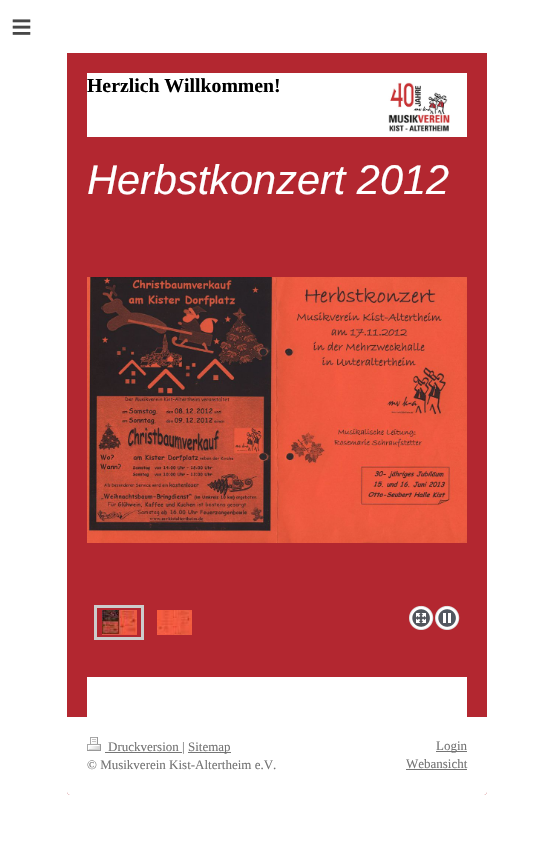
#include "include/core/SkBlurTypes.h"
#include "include/core/SkCanvas.h"
#include "include/core/SkData.h"
#include "include/core/SkFont.h"
#include "include/core/SkFontMgr.h"
#include "include/core/SkImage.h"
#include "include/core/SkMaskFilter.h"
#include "include/core/SkPaint.h"
#include "include/core/SkPathBuilder.h"
#include "include/core/SkTextBlob.h"
#include "include/effects/SkDashPathEffect.h"
#include "include/effects/SkGradientShader.h"
#include "include/utils/SkParsePath.h"

extern sk_sp<SkFontMgr> fontMgr;

void draw(SkCanvas* canvas) {
  SkPaint p;
  p.setAntiAlias(true);
  auto spacedText = [&](const char* s, float x, float y, const SkFont& font, const SkPaint& ink, float letter, float word) {
    std::vector<SkGlyphID> glyphs(font.countText(s, strlen(s), SkTextEncoding::kUTF8));
    std::vector<float> xs(glyphs.size());
    font.textToGlyphs(s, strlen(s), SkTextEncoding::kUTF8, glyphs);
    font.getXPos(glyphs, xs, x);
    float extra = 0;
    for (size_t i = 0; i < glyphs.size(); i++) {
      xs[i] += extra;
      extra += letter + word * (glyphs[i] == font.unicharToGlyph(' '));
    }
    canvas->drawTextBlob(SkTextBlob::MakeFromPosHGlyphs(glyphs, xs, y, font), 0, 0, ink);
  };
  canvas->clear(SK_ColorWHITE);
  p.setColor(SkColorSetRGB(179, 39, 48));
  canvas->drawPath(SkPathBuilder().moveTo(67, 30).lineTo(487, 30).lineTo(487, 792).cubicTo(487, 793.5f, 485.5f, 795, 484, 795).lineTo(70, 795).cubicTo(68.5f, 795, 67, 793.5f, 67, 792).close().detach(), p);
  p.setColor(SK_ColorWHITE);
  canvas->drawRect(SkRect::MakeLTRB(67, 30, 487, 53), p);
  canvas->drawRect(SkRect::MakeLTRB(87, 73, 467, 137), p);
  canvas->drawImageRect(SkImages::DeferredFromEncodedData(SkData::MakeFromFileName("images/1.png")), SkRect::MakeLTRB(388, 82, 450, 132), SkSamplingOptions());
  canvas->drawImageRect(SkImages::DeferredFromEncodedData(SkData::MakeFromFileName("images/2.png")), SkRect::MakeLTRB(87, 277, 467, 543), SkSamplingOptions());
  p.setStyle(SkPaint::kStroke_Style);
  p.setStrokeWidth(3);
  p.setColor(SkColorSetRGB(204, 204, 204));
  canvas->drawRect(SkRect::MakeLTRB(95.5f, 606.5f, 142.5f, 638.5f), p);
  canvas->drawImageRect(SkImages::DeferredFromEncodedData(SkData::MakeFromFileName("images/3.png")), SkRect::MakeLTRB(102, 610, 137, 635), SkSamplingOptions());
  canvas->drawImageRect(SkImages::DeferredFromEncodedData(SkData::MakeFromFileName("images/4.png")), SkRect::MakeLTRB(157, 610, 192, 635), SkSamplingOptions());
  canvas->drawImageRect(SkImages::DeferredFromEncodedData(SkData::MakeFromFileName("images/5.png")), SkRect::MakeLTRB(409, 605, 434, 630), SkSamplingOptions());
  canvas->drawImageRect(SkImages::DeferredFromEncodedData(SkData::MakeFromFileName("images/6.png")), SkRect::MakeLTRB(435, 605, 460, 630), SkSamplingOptions());
  p.setStyle(SkPaint::kFill_Style);
  p.setColor(SK_ColorWHITE);
  canvas->drawRect(SkRect::MakeLTRB(87, 677, 467, 717), p);
  canvas->drawPath(SkPathBuilder().moveTo(67, 717).lineTo(487, 717).lineTo(487, 792).cubicTo(487, 793.5f, 485.5f, 795, 484, 795).lineTo(70, 795).cubicTo(68.5f, 795, 67, 793.5f, 67, 792).close().detach(), p);
  canvas->drawImageRect(SkImages::DeferredFromEncodedData(SkData::MakeFromFileName("images/7.png")), SkRect::MakeLTRB(87, 737, 101, 751), SkSamplingOptions());
  p.setColor(SkColorSetRGB(117, 117, 117));
  canvas->drawRect(SkRect::MakeLTRB(105, 752, 182, 753), p);
  canvas->drawRect(SkRect::MakeLTRB(188, 752, 231, 753), p);
  canvas->drawRect(SkRect::MakeLTRB(436, 751, 467, 752), p);
  canvas->drawRect(SkRect::MakeLTRB(406, 769, 467, 770), p);
  SkFont font1(fontMgr->matchFamilyStyle("Liberation Sans", SkFontStyle::Normal()), 36);
  font1.setSubpixel(true);
  p.setColor(SkColorSetRGB(71, 71, 71));
  spacedText("≡", 11, 39, font1, p, 10, 0);
  SkFont font2(fontMgr->matchFamilyStyle("Liberation Serif", SkFontStyle::Bold()), 19.75f);
  font2.setSubpixel(true);
  p.setColor(SK_ColorBLACK);
  canvas->drawString("Herzlich Willkommen!", 87, 92, font2, p);
  SkFont font3(fontMgr->matchFamilyStyle("Liberation Sans", SkFontStyle::Italic()), 41.5f);
  font3.setSubpixel(true);
  p.setColor(SK_ColorWHITE);
  canvas->drawString("Herbstkonzert 2012", 87, 194, font3, p);
  SkFont font4(fontMgr->matchFamilyStyle("Liberation Serif", SkFontStyle::Normal()), 13);
  font4.setSubpixel(true);
  p.setColor(SkColorSetRGB(117, 117, 117));
  canvas->drawString("Druckversion |", 108, 751, font4, p);
  canvas->drawString("Sitemap", 188, 751, font4, p);
  canvas->drawString("© Musikverein Kist-Altertheim e.V.", 87, 769, font4, p);
  canvas->drawString("Login", 436, 750, font4, p);
  canvas->drawString("Webansicht", 406, 768, font4, p);
}
